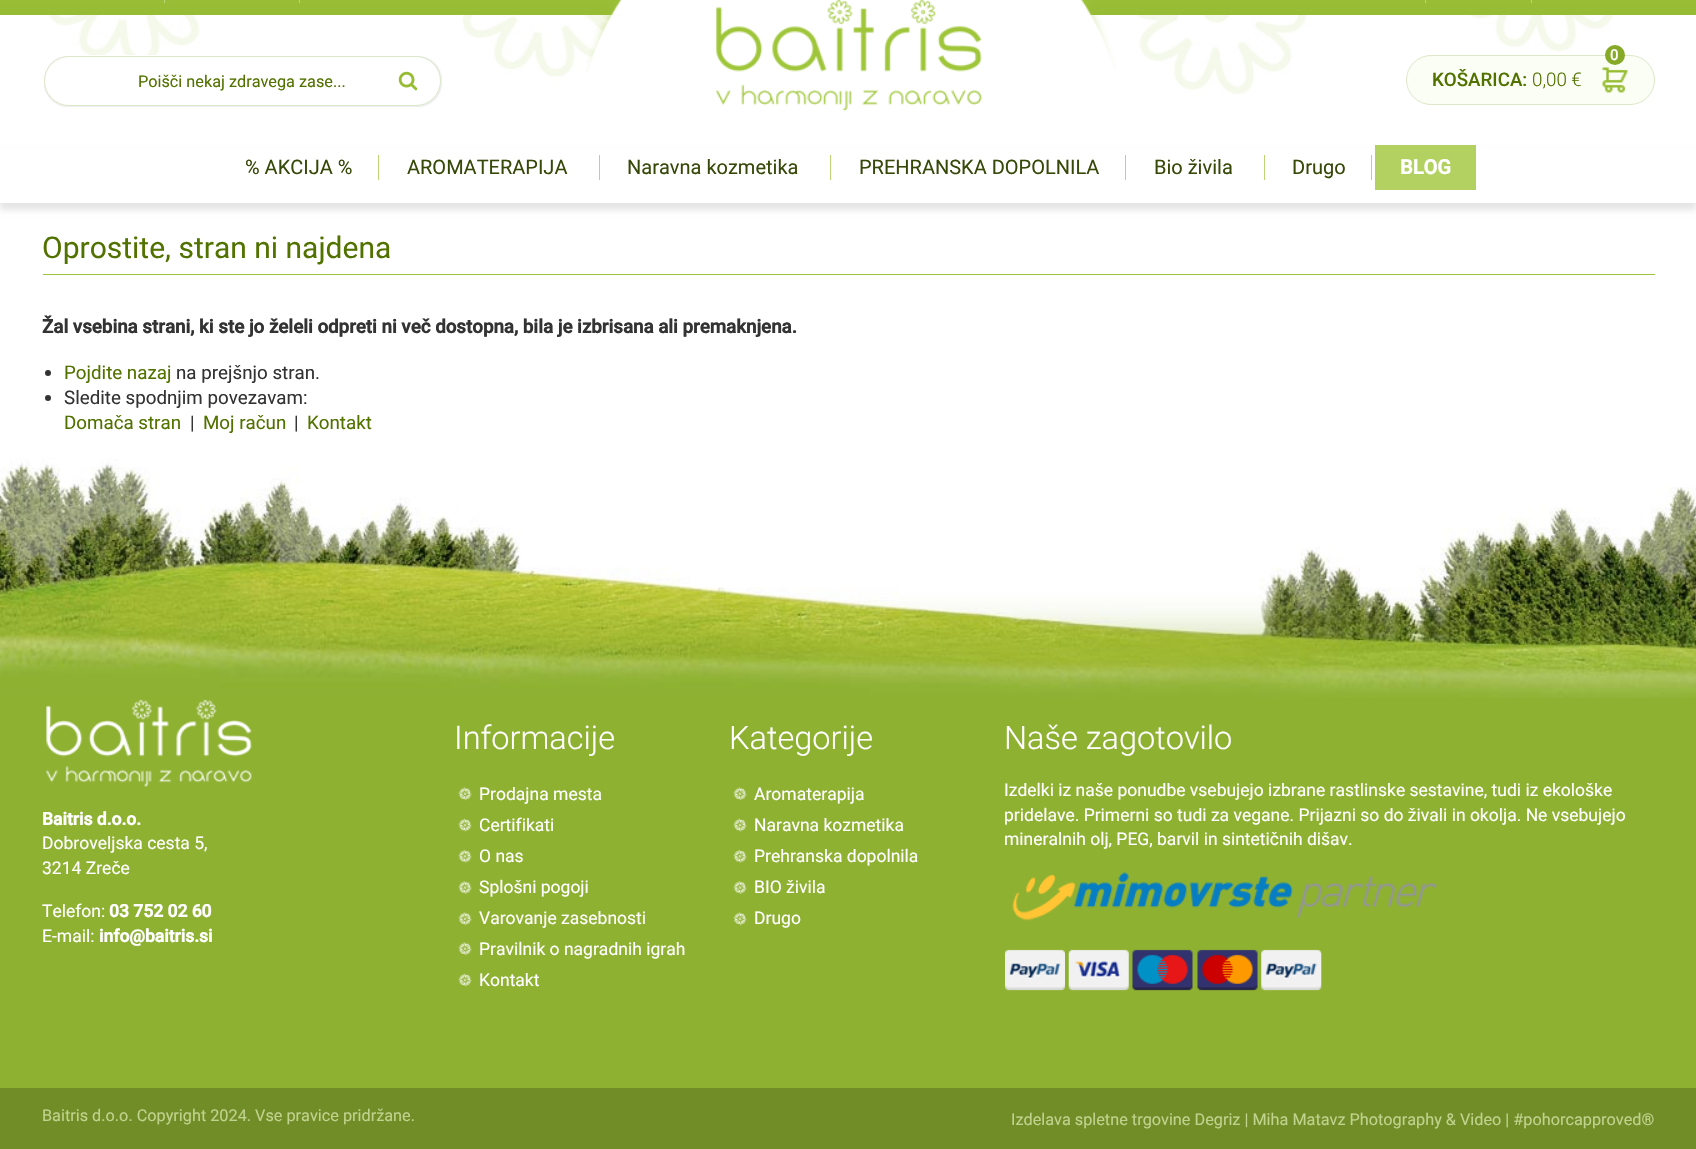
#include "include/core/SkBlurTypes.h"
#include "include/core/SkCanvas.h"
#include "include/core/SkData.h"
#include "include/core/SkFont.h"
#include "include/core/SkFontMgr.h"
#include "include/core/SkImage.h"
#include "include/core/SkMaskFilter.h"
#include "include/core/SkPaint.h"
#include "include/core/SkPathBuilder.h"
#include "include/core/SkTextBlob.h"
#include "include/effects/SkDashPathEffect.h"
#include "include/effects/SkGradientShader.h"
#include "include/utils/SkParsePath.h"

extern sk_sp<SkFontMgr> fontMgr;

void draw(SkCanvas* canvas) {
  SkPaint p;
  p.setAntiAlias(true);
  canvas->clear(SK_ColorWHITE);
  canvas->drawImageRect(SkImages::DeferredFromEncodedData(SkData::MakeFromFileName("images/1.png")), SkRect::MakeLTRB(48, 15, 1613, 94), SkSamplingOptions());
  {
    const SkColor colors[] = {SkColorSetRGB(159, 198, 58), SkColorSetRGB(150, 187, 52)};
    const float stops[] = {0, 1};
    const SkPoint ends[] = {{848, -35}, {848, 15}};
    p.setShader(SkGradientShader::MakeLinear(ends, colors, stops, 2, SkTileMode::kClamp));
    p.setAlpha(255);
  }
  canvas->drawRect(SkRect::MakeLTRB(0, 0, 1696, 15), p);
  p.setShader(nullptr);
  p.setColor(SkColorSetRGB(187, 214, 116));
  canvas->drawRect(SkRect::MakeLTRB(164, 0, 165, 3), p);
  canvas->drawRect(SkRect::MakeLTRB(299, 0, 300, 3), p);
  canvas->drawRect(SkRect::MakeLTRB(1425, 0, 1426, 3), p);
  canvas->drawRect(SkRect::MakeLTRB(1531, 0, 1532, 3), p);
  p.setColor(SkColorSetRGB(238, 238, 238));
  canvas->drawRoundRect(SkRect::MakeLTRB(43.5f, 55.5f, 442.5f, 107.5f), 24.5f, 24.5f, p);
  p.setStyle(SkPaint::kStroke_Style);
  p.setStrokeWidth(1);
  p.setColor(SK_ColorWHITE);
  canvas->drawRoundRect(SkRect::MakeLTRB(43.5f, 55.5f, 442.5f, 107.5f), 24.5f, 24.5f, p);
  p.setStyle(SkPaint::kFill_Style);
  canvas->drawRoundRect(SkRect::MakeLTRB(44.5f, 56.5f, 440.5f, 105.5f), 24.5f, 24.5f, p);
  p.setStyle(SkPaint::kStroke_Style);
  p.setColor(SkColorSetRGB(220, 232, 200));
  canvas->drawRoundRect(SkRect::MakeLTRB(44.5f, 56.5f, 440.5f, 105.5f), 24.5f, 24.5f, p);
  canvas->drawImageRect(SkImages::DeferredFromEncodedData(SkData::MakeFromFileName("images/2.png")), SkRect::MakeLTRB(398, 71, 418, 91), SkSamplingOptions());
  canvas->drawImageRect(SkImages::DeferredFromEncodedData(SkData::MakeFromFileName("images/3.png")), SkRect::MakeLTRB(586, 0, 1116, 73), SkSamplingOptions());
  canvas->drawImageRect(SkImages::DeferredFromEncodedData(SkData::MakeFromFileName("images/4.png")), SkRect::MakeLTRB(716, 0, 982, 111), SkSamplingOptions());
  p.setStyle(SkPaint::kFill_Style);
  p.setColor(SkColorSetRGB(251, 254, 245));
  canvas->drawRoundRect(SkRect::MakeLTRB(1406.5f, 55.5f, 1654.5f, 104.5f), 24.5f, 24.5f, p);
  p.setStyle(SkPaint::kStroke_Style);
  p.setColor(SkColorSetRGB(220, 232, 200));
  canvas->drawRoundRect(SkRect::MakeLTRB(1406.5f, 55.5f, 1654.5f, 104.5f), 24.5f, 24.5f, p);
  p.setStyle(SkPaint::kFill_Style);
  p.setColor(SkColorSetRGB(134, 170, 39));
  canvas->drawCircle(1615, 55, 10, p);
  canvas->drawImageRect(SkImages::DeferredFromEncodedData(SkData::MakeFromFileName("images/5.png")), SkRect::MakeLTRB(1602, 67, 1628, 93), SkSamplingOptions());
  p.setColor(SkColorSetARGB(26, 0, 0, 0));
  p.setMaskFilter(SkMaskFilter::MakeBlur(kNormal_SkBlurStyle, 3));
  canvas->drawRect(SkRect::MakeLTRB(0, 153, 1696, 210), p);
  p.setMaskFilter(nullptr);
  p.setColor(SK_ColorWHITE);
  canvas->drawRect(SkRect::MakeLTRB(0, 149, 1696, 203), p);
  p.setColor(SkColorSetRGB(187, 214, 116));
  canvas->drawRect(SkRect::MakeLTRB(378, 155, 379, 180), p);
  canvas->drawRect(SkRect::MakeLTRB(599, 155, 600, 180), p);
  canvas->drawRect(SkRect::MakeLTRB(830, 155, 831, 180), p);
  canvas->drawRect(SkRect::MakeLTRB(1125, 155, 1126, 180), p);
  canvas->drawRect(SkRect::MakeLTRB(1264, 155, 1265, 180), p);
  canvas->drawRect(SkRect::MakeLTRB(1371, 155, 1372, 180), p);
  p.setColor(SkColorSetRGB(178, 209, 97));
  canvas->drawRect(SkRect::MakeLTRB(1375, 145, 1476, 190), p);
  p.setColor(SkColorSetRGB(159, 198, 58));
  canvas->drawRect(SkRect::MakeLTRB(43, 274, 1655, 275), p);
  p.setColor(SkColorSetRGB(51, 51, 51));
  canvas->drawCircle(48, 373, 3, p);
  canvas->drawCircle(48, 398, 3, p);
  canvas->drawImageRect(SkImages::DeferredFromEncodedData(SkData::MakeFromFileName("images/6.png")), SkRect::MakeLTRB(0, 458, 1696, 698), SkSamplingOptions());
  p.setColor(SkColorSetRGB(142, 177, 50));
  canvas->drawRect(SkRect::MakeLTRB(0, 698, 1696, 1088), p);
  canvas->drawImageRect(SkImages::DeferredFromEncodedData(SkData::MakeFromFileName("images/7.png")), SkRect::MakeLTRB(46, 699, 252, 787), SkSamplingOptions());
  canvas->drawImageRect(SkImages::DeferredFromEncodedData(SkData::MakeFromFileName("images/8.png")), SkRect::MakeLTRB(458, 787, 472, 801), SkSamplingOptions());
  canvas->drawImageRect(SkImages::DeferredFromEncodedData(SkData::MakeFromFileName("images/9.png")), SkRect::MakeLTRB(458, 818, 472, 832), SkSamplingOptions());
  canvas->drawImageRect(SkImages::DeferredFromEncodedData(SkData::MakeFromFileName("images/10.png")), SkRect::MakeLTRB(458, 849, 472, 863), SkSamplingOptions());
  canvas->drawImageRect(SkImages::DeferredFromEncodedData(SkData::MakeFromFileName("images/11.png")), SkRect::MakeLTRB(458, 881, 472, 894), SkSamplingOptions());
  canvas->drawImageRect(SkImages::DeferredFromEncodedData(SkData::MakeFromFileName("images/8.png")), SkRect::MakeLTRB(458, 912, 472, 926), SkSamplingOptions());
  canvas->drawImageRect(SkImages::DeferredFromEncodedData(SkData::MakeFromFileName("images/8.png")), SkRect::MakeLTRB(458, 942, 472, 956), SkSamplingOptions());
  canvas->drawImageRect(SkImages::DeferredFromEncodedData(SkData::MakeFromFileName("images/9.png")), SkRect::MakeLTRB(458, 973, 472, 987), SkSamplingOptions());
  canvas->drawImageRect(SkImages::DeferredFromEncodedData(SkData::MakeFromFileName("images/8.png")), SkRect::MakeLTRB(733, 787, 747, 801), SkSamplingOptions());
  canvas->drawImageRect(SkImages::DeferredFromEncodedData(SkData::MakeFromFileName("images/9.png")), SkRect::MakeLTRB(733, 818, 747, 832), SkSamplingOptions());
  canvas->drawImageRect(SkImages::DeferredFromEncodedData(SkData::MakeFromFileName("images/10.png")), SkRect::MakeLTRB(733, 849, 747, 863), SkSamplingOptions());
  canvas->drawImageRect(SkImages::DeferredFromEncodedData(SkData::MakeFromFileName("images/11.png")), SkRect::MakeLTRB(733, 881, 747, 894), SkSamplingOptions());
  canvas->drawImageRect(SkImages::DeferredFromEncodedData(SkData::MakeFromFileName("images/8.png")), SkRect::MakeLTRB(733, 912, 747, 926), SkSamplingOptions());
  canvas->drawImageRect(SkImages::DeferredFromEncodedData(SkData::MakeFromFileName("images/12.png")), SkRect::MakeLTRB(1012, 872, 1438, 921), SkSamplingOptions());
  canvas->drawImageRect(SkImages::DeferredFromEncodedData(SkData::MakeFromFileName("images/13.png")), SkRect::MakeLTRB(1005, 949, 1065, 991), SkSamplingOptions());
  canvas->drawImageRect(SkImages::DeferredFromEncodedData(SkData::MakeFromFileName("images/14.png")), SkRect::MakeLTRB(1068, 949, 1129, 991), SkSamplingOptions());
  canvas->drawImageRect(SkImages::DeferredFromEncodedData(SkData::MakeFromFileName("images/15.png")), SkRect::MakeLTRB(1132, 949, 1193, 991), SkSamplingOptions());
  canvas->drawImageRect(SkImages::DeferredFromEncodedData(SkData::MakeFromFileName("images/16.png")), SkRect::MakeLTRB(1197, 949, 1258, 991), SkSamplingOptions());
  canvas->drawImageRect(SkImages::DeferredFromEncodedData(SkData::MakeFromFileName("images/17.png")), SkRect::MakeLTRB(1261, 949, 1322, 991), SkSamplingOptions());
  p.setColor(SkColorSetRGB(113, 141, 40));
  canvas->drawRect(SkRect::MakeLTRB(0, 1088, 1696, 1149), p);
  SkFont font1(fontMgr->matchFamilyStyle("Roboto", SkFontStyle::Normal()), 16.25f);
  font1.setSubpixel(true);
  p.setColor(SkColorSetRGB(82, 114, 0));
  canvas->drawString("Poišči nekaj zdravega zase...", 138, 87, font1, p);
  SkFont font2(fontMgr->matchFamilyStyle("Roboto", SkFontStyle(500, SkFontStyle::kNormal_Width, SkFontStyle::kUpright_Slant)), 15);
  font2.setSubpixel(true);
  p.setColor(SK_ColorWHITE);
  canvas->drawString("0", 1610, 60, font2, p);
  SkFont font3(fontMgr->matchFamilyStyle("Roboto", SkFontStyle(500, SkFontStyle::kNormal_Width, SkFontStyle::kUpright_Slant)), 18.75f);
  font3.setSubpixel(true);
  p.setColor(SkColorSetRGB(82, 114, 0));
  canvas->drawString("KOŠARICA:", 1432, 86, font3, p);
  SkFont font4(fontMgr->matchFamilyStyle("Roboto", SkFontStyle(300, SkFontStyle::kNormal_Width, SkFontStyle::kUpright_Slant)), 18.75f);
  font4.setSubpixel(true);
  canvas->drawString("0,00 €", 1532, 86, font4, p);
  SkFont font5(fontMgr->matchFamilyStyle("Roboto", SkFontStyle::Normal()), 20);
  font5.setSubpixel(true);
  p.setColor(SkColorSetRGB(55, 73, 9));
  canvas->drawString("% AKCIJA %", 245, 174, font5, p);
  canvas->drawString("AROMATERAPIJA", 407, 174, font5, p);
  canvas->drawString("Naravna kozmetika", 627, 174, font5, p);
  canvas->drawString("PREHRANSKA DOPOLNILA", 859, 174, font5, p);
  canvas->drawString("Bio živila", 1154, 174, font5, p);
  canvas->drawString("Drugo", 1292, 174, font5, p);
  SkFont font6(fontMgr->matchFamilyStyle("Roboto", SkFontStyle::Bold()), 20);
  font6.setSubpixel(true);
  p.setColor(SK_ColorWHITE);
  canvas->drawString("BLOG", 1400, 174, font6, p);
  SkFont font7(fontMgr->matchFamilyStyle("Roboto", SkFontStyle::Normal()), 30);
  font7.setSubpixel(true);
  p.setColor(SkColorSetRGB(82, 114, 0));
  canvas->drawString("Oprostite, stran ni najdena", 42, 258, font7, p);
  SkFont font8(fontMgr->matchFamilyStyle("Roboto", SkFontStyle::Bold()), 18.75f);
  font8.setSubpixel(true);
  p.setColor(SkColorSetRGB(51, 51, 51));
  canvas->drawString("Žal vsebina strani, ki ste jo želeli odpreti ni več dostopna, bila je izbrisana ali premaknjena.", 42, 333, font8, p);
  SkFont font9(fontMgr->matchFamilyStyle("Roboto", SkFontStyle::Normal()), 18.75f);
  font9.setSubpixel(true);
  p.setColor(SkColorSetRGB(82, 114, 0));
  canvas->drawString("Pojdite nazaj", 64, 379, font9, p);
  p.setColor(SkColorSetRGB(51, 51, 51));
  canvas->drawString("na prejšnjo stran.", 176, 379, font9, p);
  canvas->drawString("Sledite spodnjim povezavam:", 64, 404, font9, p);
  p.setColor(SkColorSetRGB(82, 114, 0));
  canvas->drawString("Domača stran", 64, 429, font9, p);
  p.setColor(SkColorSetRGB(51, 51, 51));
  canvas->drawString("|", 190, 429, font9, p);
  p.setColor(SkColorSetRGB(82, 114, 0));
  canvas->drawString("Moj račun", 203, 429, font9, p);
  p.setColor(SkColorSetRGB(51, 51, 51));
  canvas->drawString("|", 294, 429, font9, p);
  p.setColor(SkColorSetRGB(82, 114, 0));
  canvas->drawString("Kontakt", 307, 429, font9, p);
  SkFont font10(fontMgr->matchFamilyStyle("Roboto", SkFontStyle::Bold()), 17.5f);
  font10.setSubpixel(true);
  p.setColor(SK_ColorWHITE);
  canvas->drawString("Baitris d.o.o.", 42, 825, font10, p);
  SkFont font11(fontMgr->matchFamilyStyle("Roboto", SkFontStyle::Normal()), 17.5f);
  font11.setSubpixel(true);
  canvas->drawString("Dobroveljska cesta 5,", 42, 849, font11, p);
  canvas->drawString("3214 Zreče", 42, 874, font11, p);
  canvas->drawString("Telefon:", 42, 917, font11, p);
  canvas->drawString("03 752 02 60", 109, 917, font10, p);
  canvas->drawString("E-mail:", 42, 942, font11, p);
  canvas->drawString("info@baitris.si", 99, 942, font10, p);
  SkFont font12(fontMgr->matchFamilyStyle("Roboto", SkFontStyle(300, SkFontStyle::kNormal_Width, SkFontStyle::kUpright_Slant)), 32.5f);
  font12.setSubpixel(true);
  canvas->drawString("Informacije", 454, 749, font12, p);
  canvas->drawString("Prodajna mesta", 479, 800, font11, p);
  canvas->drawString("Certifikati", 479, 831, font11, p);
  canvas->drawString("O nas", 479, 862, font11, p);
  canvas->drawString("Splošni pogoji", 479, 893, font11, p);
  canvas->drawString("Varovanje zasebnosti", 479, 924, font11, p);
  canvas->drawString("Pravilnik o nagradnih igrah", 479, 955, font11, p);
  canvas->drawString("Kontakt", 479, 986, font11, p);
  canvas->drawString("Kategorije", 729, 749, font12, p);
  canvas->drawString("Aromaterapija", 754, 800, font11, p);
  canvas->drawString("Naravna kozmetika", 754, 831, font11, p);
  canvas->drawString("Prehranska dopolnila", 754, 862, font11, p);
  canvas->drawString("BIO živila", 754, 893, font11, p);
  canvas->drawString("Drugo", 754, 924, font11, p);
  canvas->drawString("Naše zagotovilo", 1004, 749, font12, p);
  canvas->drawString("Izdelki iz naše ponudbe vsebujejo izbrane rastlinske sestavine, tudi iz ekološke", 1004, 796, font11, p);
  canvas->drawString("pridelave. Primerni so tudi za vegane. Prijazni so do živali in okolja. Ne vsebujejo", 1004, 821, font11, p);
  canvas->drawString("mineralnih olj, PEG, barvil in sintetičnih dišav.", 1004, 845, font11, p);
  p.setColor(SkColorSetRGB(192, 211, 141));
  canvas->drawString("Baitris d.o.o. Copyright 2024. Vse pravice pridržane.", 42, 1121, font1, p);
  canvas->drawString("Izdelava spletne trgovine Degriz | Miha Matavz Photography & Video | #pohorcapproved®", 1011, 1125, font1, p);
}
